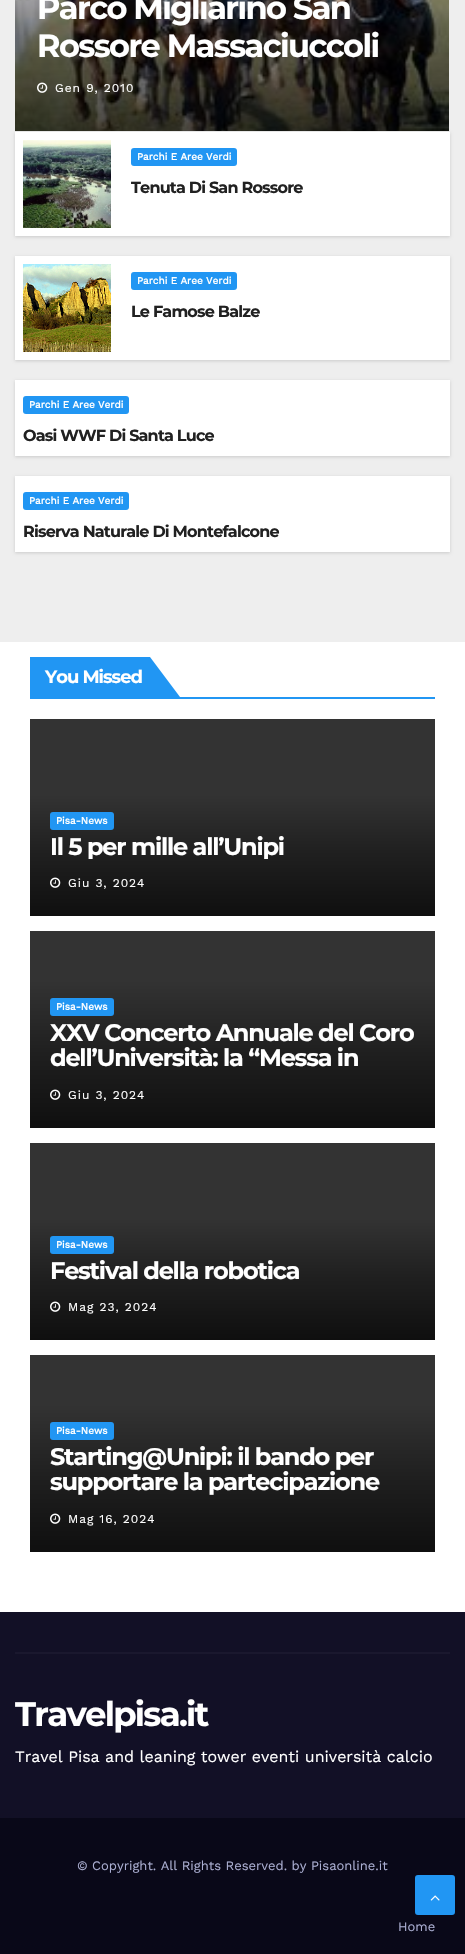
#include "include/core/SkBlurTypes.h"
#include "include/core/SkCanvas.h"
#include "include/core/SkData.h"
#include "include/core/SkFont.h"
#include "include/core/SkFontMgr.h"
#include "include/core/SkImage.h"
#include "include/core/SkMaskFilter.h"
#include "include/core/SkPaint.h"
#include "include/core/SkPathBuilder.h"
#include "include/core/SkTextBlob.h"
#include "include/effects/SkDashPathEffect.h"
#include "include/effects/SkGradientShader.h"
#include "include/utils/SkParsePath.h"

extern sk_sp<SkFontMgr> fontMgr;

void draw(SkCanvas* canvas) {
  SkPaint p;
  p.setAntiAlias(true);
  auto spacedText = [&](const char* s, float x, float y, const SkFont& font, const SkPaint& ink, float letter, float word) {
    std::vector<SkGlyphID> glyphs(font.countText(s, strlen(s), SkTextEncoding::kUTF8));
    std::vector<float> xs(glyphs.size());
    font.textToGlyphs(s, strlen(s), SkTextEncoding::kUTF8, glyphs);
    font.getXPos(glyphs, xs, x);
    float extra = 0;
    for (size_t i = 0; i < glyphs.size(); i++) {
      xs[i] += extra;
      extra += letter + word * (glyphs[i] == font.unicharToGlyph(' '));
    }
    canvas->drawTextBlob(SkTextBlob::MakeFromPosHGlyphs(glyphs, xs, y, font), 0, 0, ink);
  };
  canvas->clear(SK_ColorWHITE);
  p.setColor(SkColorSetRGB(238, 238, 238));
  canvas->drawRect(SkRect::MakeLTRB(0, 0, 465, 642), p);
  canvas->drawImageRect(SkImages::DeferredFromEncodedData(SkData::MakeFromFileName("images/1.png")), SkRect::MakeLTRB(15, 0, 449, 131), SkSamplingOptions());
  canvas->drawImageRect(SkImages::DeferredFromEncodedData(SkData::MakeFromFileName("images/2.png")), SkRect::MakeLTRB(37, 82, 48, 93), SkSamplingOptions());
  p.setColor(SkColorSetARGB(38, 0, 0, 0));
  p.setMaskFilter(SkMaskFilter::MakeBlur(kNormal_SkBlurStyle, 1.5f));
  canvas->drawRect(SkRect::MakeLTRB(15, 133, 450, 237), p);
  p.setMaskFilter(nullptr);
  p.setColor(SK_ColorWHITE);
  canvas->drawRect(SkRect::MakeLTRB(15, 132, 450, 236), p);
  canvas->drawImageRect(SkImages::DeferredFromEncodedData(SkData::MakeFromFileName("images/3.png")), SkRect::MakeLTRB(23, 140, 111, 228), SkSamplingOptions());
  p.setColor(SkColorSetRGB(33, 150, 243));
  canvas->drawRoundRect(SkRect::MakeLTRB(131, 148, 237, 166), 3, 3, p);
  p.setColor(SkColorSetARGB(38, 0, 0, 0));
  p.setMaskFilter(SkMaskFilter::MakeBlur(kNormal_SkBlurStyle, 1.5f));
  canvas->drawRect(SkRect::MakeLTRB(15, 257, 450, 361), p);
  p.setMaskFilter(nullptr);
  p.setColor(SK_ColorWHITE);
  canvas->drawRect(SkRect::MakeLTRB(15, 256, 450, 360), p);
  canvas->drawImageRect(SkImages::DeferredFromEncodedData(SkData::MakeFromFileName("images/4.png")), SkRect::MakeLTRB(23, 264, 111, 352), SkSamplingOptions());
  p.setColor(SkColorSetRGB(33, 150, 243));
  canvas->drawRoundRect(SkRect::MakeLTRB(131, 272, 237, 290), 3, 3, p);
  p.setColor(SkColorSetARGB(38, 0, 0, 0));
  p.setMaskFilter(SkMaskFilter::MakeBlur(kNormal_SkBlurStyle, 1.5f));
  canvas->drawRect(SkRect::MakeLTRB(15, 381, 450, 457), p);
  p.setMaskFilter(nullptr);
  p.setColor(SK_ColorWHITE);
  canvas->drawRect(SkRect::MakeLTRB(15, 380, 450, 456), p);
  p.setColor(SkColorSetRGB(33, 150, 243));
  canvas->drawRoundRect(SkRect::MakeLTRB(23, 396, 129, 414), 3, 3, p);
  p.setColor(SkColorSetARGB(38, 0, 0, 0));
  p.setMaskFilter(SkMaskFilter::MakeBlur(kNormal_SkBlurStyle, 1.5f));
  canvas->drawRect(SkRect::MakeLTRB(15, 477, 450, 553), p);
  p.setMaskFilter(nullptr);
  p.setColor(SK_ColorWHITE);
  canvas->drawRect(SkRect::MakeLTRB(15, 476, 450, 552), p);
  p.setColor(SkColorSetRGB(33, 150, 243));
  canvas->drawRoundRect(SkRect::MakeLTRB(23, 492, 129, 510), 3, 3, p);
  canvas->drawRect(SkRect::MakeLTRB(30, 697, 435, 699), p);
  canvas->drawRect(SkRect::MakeLTRB(30, 657, 150, 697), p);
  canvas->drawPath(SkPathBuilder().moveTo(150, 697).lineTo(150, 657).lineTo(180, 697).close().detach(), p);
  p.setColor(SkColorSetRGB(51, 51, 51));
  canvas->drawRect(SkRect::MakeLTRB(30, 719, 435, 794), p);
  {
    const SkColor colors[] = {SkColorSetRGB(51, 51, 51), SkColorSetRGB(31, 31, 31), SkColorSetRGB(15, 15, 15)};
    const float stops[] = {0, 0.5f, 1};
    const SkPoint ends[] = {{233, 794}, {233, 916}};
    p.setShader(SkGradientShader::MakeLinear(ends, colors, stops, 3, SkTileMode::kClamp));
    p.setAlpha(255);
  }
  canvas->drawRect(SkRect::MakeLTRB(30, 794, 435, 916), p);
  p.setShader(nullptr);
  p.setColor(SkColorSetRGB(33, 150, 243));
  canvas->drawRoundRect(SkRect::MakeLTRB(50, 812, 114, 830), 3, 3, p);
  canvas->drawImageRect(SkImages::DeferredFromEncodedData(SkData::MakeFromFileName("images/5.png")), SkRect::MakeLTRB(50, 877, 61, 888), SkSamplingOptions());
  p.setColor(SkColorSetRGB(51, 51, 51));
  canvas->drawRect(SkRect::MakeLTRB(30, 931, 435, 980), p);
  {
    const SkColor colors[] = {SkColorSetRGB(51, 51, 51), SkColorSetRGB(31, 31, 31), SkColorSetRGB(15, 15, 15)};
    const float stops[] = {0, 0.5f, 1};
    const SkPoint ends[] = {{233, 980}, {233, 1128}};
    p.setShader(SkGradientShader::MakeLinear(ends, colors, stops, 3, SkTileMode::kClamp));
    p.setAlpha(255);
  }
  canvas->drawRect(SkRect::MakeLTRB(30, 980, 435, 1128), p);
  p.setShader(nullptr);
  p.setColor(SkColorSetRGB(33, 150, 243));
  canvas->drawRoundRect(SkRect::MakeLTRB(50, 998, 114, 1016), 3, 3, p);
  canvas->drawImageRect(SkImages::DeferredFromEncodedData(SkData::MakeFromFileName("images/6.png")), SkRect::MakeLTRB(50, 1089, 61, 1100), SkSamplingOptions());
  p.setColor(SkColorSetRGB(51, 51, 51));
  canvas->drawRect(SkRect::MakeLTRB(30, 1143, 435, 1218), p);
  {
    const SkColor colors[] = {SkColorSetRGB(51, 51, 51), SkColorSetRGB(31, 31, 31), SkColorSetRGB(15, 15, 15)};
    const float stops[] = {0, 0.5f, 1};
    const SkPoint ends[] = {{233, 1218}, {233, 1340}};
    p.setShader(SkGradientShader::MakeLinear(ends, colors, stops, 3, SkTileMode::kClamp));
    p.setAlpha(255);
  }
  canvas->drawRect(SkRect::MakeLTRB(30, 1218, 435, 1340), p);
  p.setShader(nullptr);
  p.setColor(SkColorSetRGB(33, 150, 243));
  canvas->drawRoundRect(SkRect::MakeLTRB(50, 1236, 114, 1254), 3, 3, p);
  canvas->drawImageRect(SkImages::DeferredFromEncodedData(SkData::MakeFromFileName("images/5.png")), SkRect::MakeLTRB(50, 1301, 61, 1312), SkSamplingOptions());
  p.setColor(SkColorSetRGB(51, 51, 51));
  canvas->drawRect(SkRect::MakeLTRB(30, 1355, 435, 1404), p);
  {
    const SkColor colors[] = {SkColorSetRGB(51, 51, 51), SkColorSetRGB(31, 31, 31), SkColorSetRGB(15, 15, 15)};
    const float stops[] = {0, 0.5f, 1};
    const SkPoint ends[] = {{233, 1404}, {233, 1552}};
    p.setShader(SkGradientShader::MakeLinear(ends, colors, stops, 3, SkTileMode::kClamp));
    p.setAlpha(255);
  }
  canvas->drawRect(SkRect::MakeLTRB(30, 1404, 435, 1552), p);
  p.setShader(nullptr);
  p.setColor(SkColorSetRGB(33, 150, 243));
  canvas->drawRoundRect(SkRect::MakeLTRB(50, 1422, 114, 1440), 3, 3, p);
  canvas->drawImageRect(SkImages::DeferredFromEncodedData(SkData::MakeFromFileName("images/6.png")), SkRect::MakeLTRB(50, 1513, 61, 1524), SkSamplingOptions());
  p.setColor(SkColorSetRGB(18, 16, 38));
  canvas->drawRect(SkRect::MakeLTRB(0, 1612, 465, 1818), p);
  p.setColor(SkColorSetRGB(26, 24, 46));
  canvas->drawRect(SkRect::MakeLTRB(15, 1652, 450, 1654), p);
  p.setColor(SkColorSetRGB(9, 8, 24));
  canvas->drawRect(SkRect::MakeLTRB(0, 1818, 465, 1954), p);
  p.setColor(SkColorSetRGB(33, 150, 243));
  canvas->drawRoundRect(SkRect::MakeLTRB(416, 1876, 454, 1914), 2, 2, p);
  p.setStyle(SkPaint::kStroke_Style);
  p.setStrokeWidth(2);
  canvas->drawRoundRect(SkRect::MakeLTRB(416, 1876, 454, 1914), 2, 2, p);
  canvas->drawImageRect(SkImages::DeferredFromEncodedData(SkData::MakeFromFileName("images/7.png")), SkRect::MakeLTRB(430, 1895, 440, 1901), SkSamplingOptions());
  SkFont font1(fontMgr->matchFamilyStyle("Montserrat", SkFontStyle::Bold()), 32);
  font1.setSubpixel(true);
  p.setStyle(SkPaint::kFill_Style);
  p.setColor(SK_ColorWHITE);
  spacedText("Parco Migliarino San", 37, 19, font1, p, -1.6f, 0);
  spacedText("Rossore Massaciuccoli", 37, 57, font1, p, -1.6f, 0);
  SkFont font2(fontMgr->matchFamilyStyle("Work Sans", SkFontStyle::Normal()), 12);
  font2.setSubpixel(true);
  spacedText("Gen 9, 2010", 55, 92, font2, p, 1, 0);
  SkFont font3(fontMgr->matchFamilyStyle("Work Sans", SkFontStyle::Bold()), 10);
  font3.setSubpixel(true);
  canvas->drawString("Parchi E Aree Verdi", 137, 160, font3, p);
  SkFont font4(fontMgr->matchFamilyStyle("Montserrat", SkFontStyle::Bold()), 16);
  font4.setSubpixel(true);
  p.setColor(SkColorSetRGB(33, 33, 33));
  spacedText("Tenuta Di San Rossore", 131, 193, font4, p, -0.8f, 0);
  p.setColor(SK_ColorWHITE);
  canvas->drawString("Parchi E Aree Verdi", 137, 284, font3, p);
  p.setColor(SkColorSetRGB(33, 33, 33));
  spacedText("Le Famose Balze", 131, 317, font4, p, -0.8f, 0);
  p.setColor(SK_ColorWHITE);
  canvas->drawString("Parchi E Aree Verdi", 29, 408, font3, p);
  p.setColor(SkColorSetRGB(33, 33, 33));
  spacedText("Oasi WWF Di Santa Luce", 23, 441, font4, p, -0.8f, 0);
  p.setColor(SK_ColorWHITE);
  canvas->drawString("Parchi E Aree Verdi", 29, 504, font3, p);
  p.setColor(SkColorSetRGB(33, 33, 33));
  spacedText("Riserva Naturale Di Montefalcone", 23, 537, font4, p, -0.8f, 0);
  SkFont font5(fontMgr->matchFamilyStyle("Montserrat", SkFontStyle::Bold()), 18);
  font5.setSubpixel(true);
  p.setColor(SK_ColorWHITE);
  spacedText("You Missed", 45, 683, font5, p, -1, 0);
  canvas->drawString("Pisa-News", 56, 824, font3, p);
  canvas->save();
  canvas->clipRect(SkRect::MakeLTRB(50, 834, 415, 859));
  SkFont font6(fontMgr->matchFamilyStyle("Montserrat", SkFontStyle::Bold()), 24);
  font6.setSubpixel(true);
  spacedText("Il 5 per mille all’Unipi", 50, 855, font6, p, -1.2f, 0);
  canvas->restore();
  spacedText("Giu 3, 2024", 68, 887, font2, p, 1, 0);
  canvas->drawString("Pisa-News", 56, 1010, font3, p);
  spacedText("XXV Concerto Annuale del Coro", 50, 1041, font6, p, -1.2f, 0);
  spacedText("dell’Università: la “Messa in", 50, 1066, font6, p, -1.2f, 0);
  spacedText("Giu 3, 2024", 68, 1099, font2, p, 1, 0);
  canvas->drawString("Pisa-News", 56, 1248, font3, p);
  spacedText("Festival della robotica", 50, 1279, font6, p, -1.2f, 0);
  spacedText("Mag 23, 2024", 68, 1311, font2, p, 1, 0);
  canvas->drawString("Pisa-News", 56, 1434, font3, p);
  spacedText("Starting@Unipi: il bando per", 50, 1465, font6, p, -1.2f, 0);
  spacedText("supportare la partecipazione", 50, 1490, font6, p, -1.2f, 0);
  spacedText("Mag 16, 2024", 68, 1523, font2, p, 1, 0);
  SkFont font7(fontMgr->matchFamilyStyle("Montserrat", SkFontStyle::Bold()), 34);
  font7.setSubpixel(true);
  spacedText("Travelpisa.it", 15, 1726, font7, p, -1.75f, 0);
  SkFont font8(fontMgr->matchFamilyStyle("Work Sans", SkFontStyle::Normal()), 16);
  font8.setSubpixel(true);
  canvas->drawString("Travel Pisa and leaning tower eventi università calcio", 15, 1762, font8, p);
  SkFont font9(fontMgr->matchFamilyStyle("Work Sans", SkFontStyle::Normal()), 13);
  font9.setSubpixel(true);
  p.setColor(SkColorSetRGB(170, 174, 209));
  canvas->drawString("© Copyright. All Rights Reserved. by Pisaonline.it", 77, 1870, font9, p);
  canvas->drawString("Home", 398, 1931, font9, p);
}
